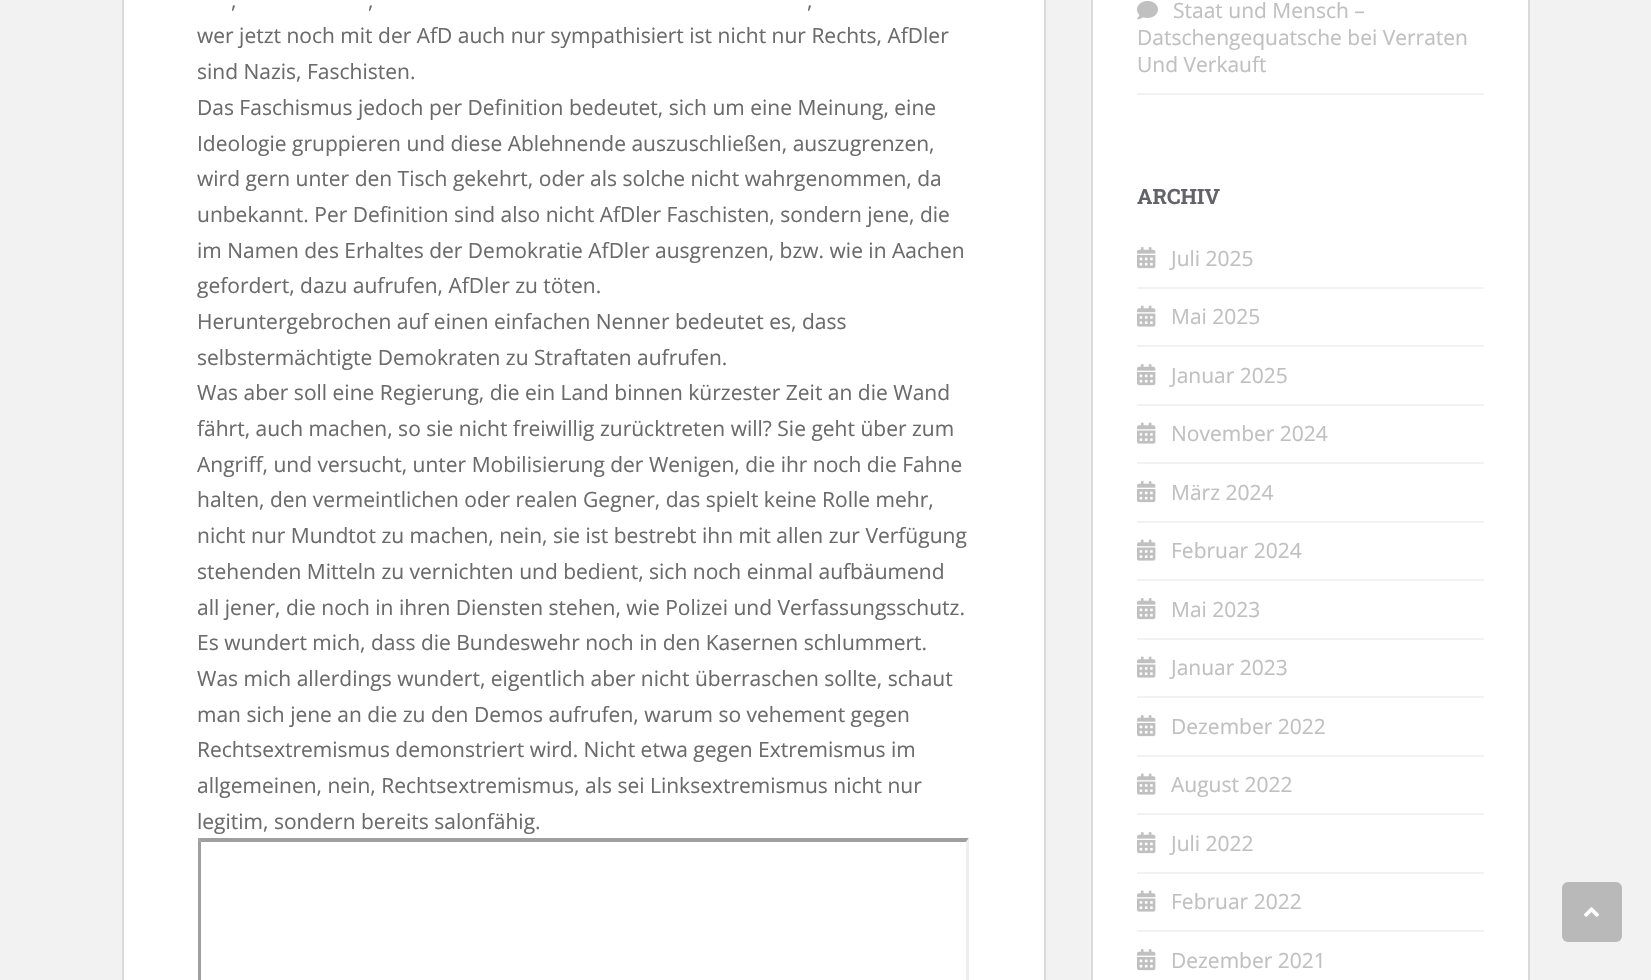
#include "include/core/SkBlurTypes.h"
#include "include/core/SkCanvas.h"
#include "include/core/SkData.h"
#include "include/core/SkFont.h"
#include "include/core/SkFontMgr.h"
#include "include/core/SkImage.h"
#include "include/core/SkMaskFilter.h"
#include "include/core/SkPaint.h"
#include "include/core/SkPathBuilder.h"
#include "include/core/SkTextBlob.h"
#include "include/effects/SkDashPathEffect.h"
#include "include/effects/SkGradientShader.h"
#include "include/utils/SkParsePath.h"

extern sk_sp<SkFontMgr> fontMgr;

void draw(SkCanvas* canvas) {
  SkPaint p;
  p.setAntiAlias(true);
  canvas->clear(SkColorSetRGB(242, 242, 242));
  p.setColor(SK_ColorWHITE);
  canvas->drawRect(SkRect::MakeLTRB(123, -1, 1045, 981), p);
  p.setStyle(SkPaint::kStroke_Style);
  p.setStrokeWidth(2);
  p.setColor(SkColorSetRGB(218, 218, 218));
  canvas->drawRect(SkRect::MakeLTRB(123, -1, 1045, 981), p);
  p.setStyle(SkPaint::kFill_Style);
  p.setColor(SkColorSetRGB(159, 159, 159));
  canvas->drawPath(SkPathBuilder().moveTo(198, 838).lineTo(969, 838).lineTo(966, 842).lineTo(201, 842).close().detach(), p);
  canvas->drawPath(SkPathBuilder().moveTo(198, 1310).lineTo(198, 838).lineTo(201, 842).lineTo(201, 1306).close().detach(), p);
  p.setColor(SkColorSetRGB(238, 238, 238));
  canvas->drawPath(SkPathBuilder().moveTo(969, 838).lineTo(969, 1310).lineTo(966, 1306).lineTo(966, 842).close().detach(), p);
  p.setColor(SK_ColorWHITE);
  canvas->drawRect(SkRect::MakeLTRB(1092, -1, 1529, 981), p);
  p.setStyle(SkPaint::kStroke_Style);
  p.setColor(SkColorSetRGB(218, 218, 218));
  canvas->drawRect(SkRect::MakeLTRB(1092, -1, 1529, 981), p);
  p.setStyle(SkPaint::kFill_Style);
  p.setColor(SkColorSetRGB(242, 242, 242));
  canvas->drawRect(SkRect::MakeLTRB(1137, 93, 1484, 95), p);
  canvas->drawImageRect(SkImages::DeferredFromEncodedData(SkData::MakeFromFileName("images/1.png")), SkRect::MakeLTRB(1137, 1, 1158, 20), SkSamplingOptions());
  canvas->drawRect(SkRect::MakeLTRB(1137, 287, 1484, 289), p);
  canvas->drawImageRect(SkImages::DeferredFromEncodedData(SkData::MakeFromFileName("images/2.png")), SkRect::MakeLTRB(1137, 247, 1156, 269), SkSamplingOptions());
  canvas->drawRect(SkRect::MakeLTRB(1137, 345, 1484, 347), p);
  canvas->drawImageRect(SkImages::DeferredFromEncodedData(SkData::MakeFromFileName("images/3.png")), SkRect::MakeLTRB(1137, 305, 1156, 327), SkSamplingOptions());
  canvas->drawRect(SkRect::MakeLTRB(1137, 404, 1484, 406), p);
  canvas->drawImageRect(SkImages::DeferredFromEncodedData(SkData::MakeFromFileName("images/2.png")), SkRect::MakeLTRB(1137, 364, 1156, 386), SkSamplingOptions());
  canvas->drawRect(SkRect::MakeLTRB(1137, 462, 1484, 464), p);
  canvas->drawImageRect(SkImages::DeferredFromEncodedData(SkData::MakeFromFileName("images/3.png")), SkRect::MakeLTRB(1137, 422, 1156, 444), SkSamplingOptions());
  canvas->drawRect(SkRect::MakeLTRB(1137, 521, 1484, 523), p);
  canvas->drawImageRect(SkImages::DeferredFromEncodedData(SkData::MakeFromFileName("images/2.png")), SkRect::MakeLTRB(1137, 481, 1156, 503), SkSamplingOptions());
  canvas->drawRect(SkRect::MakeLTRB(1137, 579, 1484, 581), p);
  canvas->drawImageRect(SkImages::DeferredFromEncodedData(SkData::MakeFromFileName("images/3.png")), SkRect::MakeLTRB(1137, 539, 1156, 561), SkSamplingOptions());
  canvas->drawRect(SkRect::MakeLTRB(1137, 638, 1484, 640), p);
  canvas->drawImageRect(SkImages::DeferredFromEncodedData(SkData::MakeFromFileName("images/2.png")), SkRect::MakeLTRB(1137, 598, 1156, 620), SkSamplingOptions());
  canvas->drawRect(SkRect::MakeLTRB(1137, 696, 1484, 698), p);
  canvas->drawImageRect(SkImages::DeferredFromEncodedData(SkData::MakeFromFileName("images/3.png")), SkRect::MakeLTRB(1137, 656, 1156, 678), SkSamplingOptions());
  canvas->drawRect(SkRect::MakeLTRB(1137, 755, 1484, 757), p);
  canvas->drawImageRect(SkImages::DeferredFromEncodedData(SkData::MakeFromFileName("images/2.png")), SkRect::MakeLTRB(1137, 715, 1156, 737), SkSamplingOptions());
  canvas->drawRect(SkRect::MakeLTRB(1137, 813, 1484, 815), p);
  canvas->drawImageRect(SkImages::DeferredFromEncodedData(SkData::MakeFromFileName("images/3.png")), SkRect::MakeLTRB(1137, 773, 1156, 795), SkSamplingOptions());
  canvas->drawRect(SkRect::MakeLTRB(1137, 872, 1484, 874), p);
  canvas->drawImageRect(SkImages::DeferredFromEncodedData(SkData::MakeFromFileName("images/2.png")), SkRect::MakeLTRB(1137, 832, 1156, 854), SkSamplingOptions());
  canvas->drawRect(SkRect::MakeLTRB(1137, 930, 1484, 932), p);
  canvas->drawImageRect(SkImages::DeferredFromEncodedData(SkData::MakeFromFileName("images/3.png")), SkRect::MakeLTRB(1137, 890, 1156, 912), SkSamplingOptions());
  canvas->drawImageRect(SkImages::DeferredFromEncodedData(SkData::MakeFromFileName("images/2.png")), SkRect::MakeLTRB(1137, 949, 1156, 971), SkSamplingOptions());
  p.setColor(SkColorSetRGB(185, 185, 185));
  canvas->drawRoundRect(SkRect::MakeLTRB(1562, 882, 1622, 942), 6, 6, p);
  canvas->drawImageRect(SkImages::DeferredFromEncodedData(SkData::MakeFromFileName("images/4.png")), SkRect::MakeLTRB(1584, 907, 1599, 917), SkSamplingOptions());
  SkFont font1(fontMgr->matchFamilyStyle("Open Sans", SkFontStyle::Normal()), 21);
  font1.setSubpixel(true);
  p.setColor(SkColorSetRGB(107, 107, 107));
  canvas->drawString(",", 231, 8, font1, p);
  canvas->drawString(",", 368, 8, font1, p);
  canvas->drawString(",", 807, 8, font1, p);
  canvas->drawString("wer jetzt noch mit der AfD auch nur sympathisiert ist nicht nur Rechts, AfDler", 197, 43, font1, p);
  canvas->drawString("sind Nazis, Faschisten.", 197, 79, font1, p);
  canvas->drawString("Das Faschismus jedoch per Definition bedeutet, sich um eine Meinung, eine", 197, 115, font1, p);
  canvas->drawString("Ideologie gruppieren und diese Ablehnende auszuschließen, auszugrenzen,", 197, 151, font1, p);
  canvas->drawString("wird gern unter den Tisch gekehrt, oder als solche nicht wahrgenommen, da", 197, 186, font1, p);
  canvas->drawString("unbekannt. Per Definition sind also nicht AfDler Faschisten, sondern jene, die", 197, 222, font1, p);
  canvas->drawString("im Namen des Erhaltes der Demokratie AfDler ausgrenzen, bzw. wie in Aachen", 197, 258, font1, p);
  canvas->drawString("gefordert, dazu aufrufen, AfDler zu töten.", 197, 293, font1, p);
  canvas->drawString("Heruntergebrochen auf einen einfachen Nenner bedeutet es, dass", 197, 329, font1, p);
  canvas->drawString("selbstermächtigte Demokraten zu Straftaten aufrufen.", 197, 365, font1, p);
  canvas->drawString("Was aber soll eine Regierung, die ein Land binnen kürzester Zeit an die Wand", 197, 400, font1, p);
  canvas->drawString("fährt, auch machen, so sie nicht freiwillig zurücktreten will? Sie geht über zum", 197, 436, font1, p);
  canvas->drawString("Angriff, und versucht, unter Mobilisierung der Wenigen, die ihr noch die Fahne", 197, 472, font1, p);
  canvas->drawString("halten, den vermeintlichen oder realen Gegner, das spielt keine Rolle mehr,", 197, 507, font1, p);
  canvas->drawString("nicht nur Mundtot zu machen, nein, sie ist bestrebt ihn mit allen zur Verfügung", 197, 543, font1, p);
  canvas->drawString("stehenden Mitteln zu vernichten und bedient, sich noch einmal aufbäumend", 197, 579, font1, p);
  canvas->drawString("all jener, die noch in ihren Diensten stehen, wie Polizei und Verfassungsschutz.", 197, 615, font1, p);
  canvas->drawString("Es wundert mich, dass die Bundeswehr noch in den Kasernen schlummert.", 197, 650, font1, p);
  canvas->drawString("Was mich allerdings wundert, eigentlich aber nicht überraschen sollte, schaut", 197, 686, font1, p);
  canvas->drawString("man sich jene an die zu den Demos aufrufen, warum so vehement gegen", 197, 722, font1, p);
  canvas->drawString("Rechtsextremismus demonstriert wird. Nicht etwa gegen Extremismus im", 197, 757, font1, p);
  canvas->drawString("allgemeinen, nein, Rechtsextremismus, als sei Linksextremismus nicht nur", 197, 793, font1, p);
  canvas->drawString("legitim, sondern bereits salonfähig.", 197, 829, font1, p);
  p.setColor(SkColorSetRGB(193, 192, 192));
  canvas->drawString("Staat und Mensch –", 1173, 18, font1, p);
  canvas->drawString("Datschengequatsche bei Verraten", 1137, 45, font1, p);
  canvas->drawString("Und Verkauft", 1137, 72, font1, p);
  SkFont font2(fontMgr->matchFamilyStyle("Roboto Slab", SkFontStyle::Bold()), 21);
  font2.setSubpixel(true);
  p.setColor(SkColorSetRGB(99, 100, 103));
  canvas->drawString("ARCHIV", 1137, 204, font2, p);
  p.setColor(SkColorSetRGB(193, 192, 192));
  canvas->drawString("Juli 2025", 1171, 266, font1, p);
  canvas->drawString("Mai 2025", 1171, 324, font1, p);
  canvas->drawString("Januar 2025", 1171, 383, font1, p);
  canvas->drawString("November 2024", 1171, 441, font1, p);
  canvas->drawString("März 2024", 1171, 500, font1, p);
  canvas->drawString("Februar 2024", 1171, 558, font1, p);
  canvas->drawString("Mai 2023", 1171, 617, font1, p);
  canvas->drawString("Januar 2023", 1171, 675, font1, p);
  canvas->drawString("Dezember 2022", 1171, 734, font1, p);
  canvas->drawString("August 2022", 1171, 792, font1, p);
  canvas->drawString("Juli 2022", 1171, 851, font1, p);
  canvas->drawString("Februar 2022", 1171, 909, font1, p);
  canvas->drawString("Dezember 2021", 1171, 968, font1, p);
}
